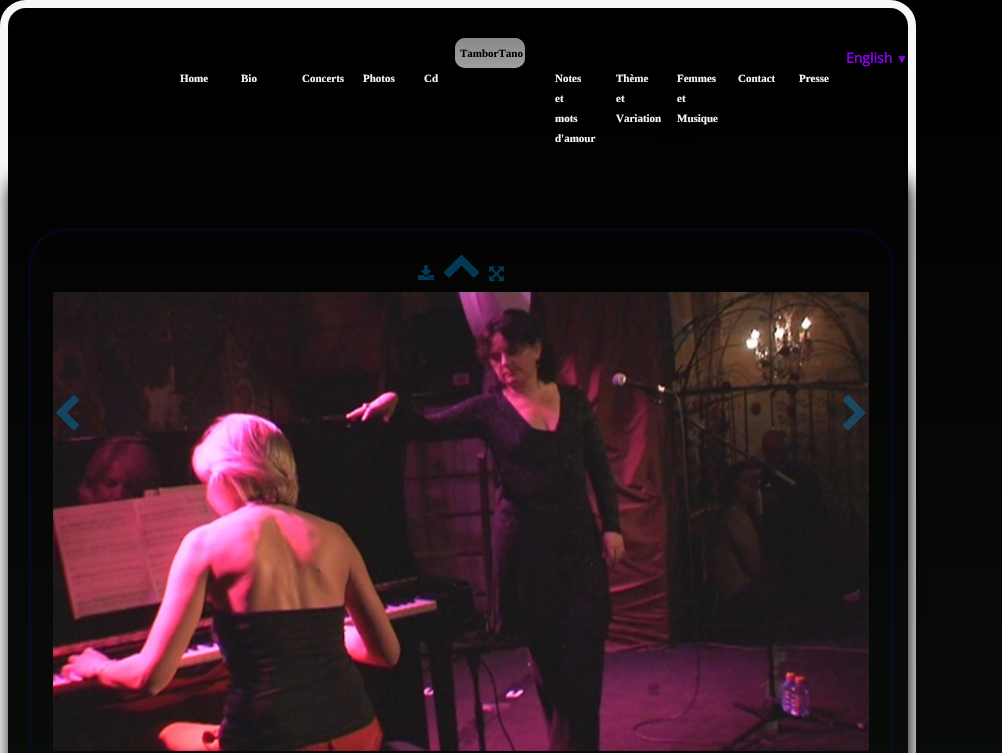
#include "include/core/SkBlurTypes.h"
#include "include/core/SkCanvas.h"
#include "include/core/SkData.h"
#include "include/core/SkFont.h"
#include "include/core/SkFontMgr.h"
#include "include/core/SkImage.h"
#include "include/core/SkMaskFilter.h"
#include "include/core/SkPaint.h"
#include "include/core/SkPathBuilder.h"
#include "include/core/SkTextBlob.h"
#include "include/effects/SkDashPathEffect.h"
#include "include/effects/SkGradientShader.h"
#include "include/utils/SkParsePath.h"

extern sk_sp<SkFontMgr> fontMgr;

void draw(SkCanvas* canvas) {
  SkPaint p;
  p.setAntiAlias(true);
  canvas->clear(SK_ColorWHITE);
  {
    const SkColor colors[] = {SK_ColorBLACK, SK_ColorBLACK, SkColorSetRGB(11, 15, 11), SkColorSetRGB(11, 9, 10)};
    const float stops[] = {0, 0.05f, 1, 1};
    const SkPoint ends[] = {{501, 0}, {501, 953}};
    p.setShader(SkGradientShader::MakeLinear(ends, colors, stops, 4, SkTileMode::kClamp));
    p.setAlpha(255);
  }
  canvas->drawRect(SkRect::MakeLTRB(0, 0, 1002, 753), p);
  p.setStyle(SkPaint::kStroke_Style);
  p.setStrokeWidth(8);
  p.setShader(nullptr);
  p.setColor(SkColorSetRGB(247, 247, 247));
  canvas->drawRoundRect(SkRect::MakeLTRB(4, 4, 912, 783), 22, 22, p);
  p.setStyle(SkPaint::kFill_Style);
  p.setColor(SkColorSetRGB(229, 229, 229));
  canvas->drawRoundRect(SkRect::MakeLTRB(455, 38, 525, 68), 10, 10, p);
  {
    const SkColor colors[] = {SkColorSetARGB(128, 46, 46, 46), SkColorSetARGB(128, 88, 88, 88)};
    const float stops[] = {0, 1};
    const SkPoint ends[] = {{490, 38}, {490, 68}};
    p.setShader(SkGradientShader::MakeLinear(ends, colors, stops, 2, SkTileMode::kClamp));
    p.setAlpha(255);
  }
  canvas->drawRoundRect(SkRect::MakeLTRB(455, 38, 525, 68), 10, 10, p);
  canvas->save();
  canvas->clipPath(SkPathBuilder(SkPathFillType::kEvenOdd).moveTo(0, 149).lineTo(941, 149).lineTo(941, 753).lineTo(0, 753).close().moveTo(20, 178).lineTo(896, 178).cubicTo(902.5f, 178, 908, 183.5f, 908, 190).lineTo(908, 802).cubicTo(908, 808.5f, 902.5f, 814, 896, 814).lineTo(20, 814).cubicTo(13.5f, 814, 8, 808.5f, 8, 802).lineTo(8, 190).cubicTo(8, 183.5f, 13.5f, 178, 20, 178).close().detach(), true);
  p.setShader(nullptr);
  p.setColor(SK_ColorBLACK);
  p.setMaskFilter(SkMaskFilter::MakeBlur(kNormal_SkBlurStyle, 10));
  canvas->drawRoundRect(SkRect::MakeLTRB(10, 180, 910, 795), 12, 12, p);
  p.setMaskFilter(nullptr);
  canvas->restore();
  p.setStyle(SkPaint::kStroke_Style);
  p.setStrokeWidth(3);
  p.setColor(SkColorSetARGB(64, 0, 17, 92));
  canvas->drawRoundRect(SkRect::MakeLTRB(29.5f, 229.5f, 892.5f, 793.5f), 37.5f, 37.5f, p);
  canvas->drawImageRect(SkImages::DeferredFromEncodedData(SkData::MakeFromFileName("images/1.png")), SkRect::MakeLTRB(418, 265, 435, 280), SkSamplingOptions());
  canvas->drawImageRect(SkImages::DeferredFromEncodedData(SkData::MakeFromFileName("images/2.png")), SkRect::MakeLTRB(444, 255, 479, 278), SkSamplingOptions());
  canvas->drawImageRect(SkImages::DeferredFromEncodedData(SkData::MakeFromFileName("images/3.png")), SkRect::MakeLTRB(489, 266, 504, 282), SkSamplingOptions());
  canvas->drawImageRect(SkImages::DeferredFromEncodedData(SkData::MakeFromFileName("images/4.png")), SkRect::MakeLTRB(53, 292, 869, 751), SkSamplingOptions());
  canvas->drawImageRect(SkImages::DeferredFromEncodedData(SkData::MakeFromFileName("images/5.png")), SkRect::MakeLTRB(56, 395, 79, 431), SkSamplingOptions());
  canvas->drawImageRect(SkImages::DeferredFromEncodedData(SkData::MakeFromFileName("images/6.png")), SkRect::MakeLTRB(843, 395, 866, 431), SkSamplingOptions());
  SkFont font1(fontMgr->matchFamilyStyle("Liberation Serif", SkFontStyle::Bold()), 11);
  font1.setSubpixel(true);
  p.setStyle(SkPaint::kFill_Style);
  p.setColor(SK_ColorBLACK);
  canvas->drawString("TamborTano", 460, 57, font1, p);
  p.setColor(SkColorSetRGB(247, 247, 247));
  canvas->drawString("Home", 180, 82, font1, p);
  canvas->drawString("Bio", 241, 82, font1, p);
  canvas->drawString("Concerts", 302, 82, font1, p);
  canvas->drawString("Photos", 363, 82, font1, p);
  canvas->drawString("Cd", 424, 82, font1, p);
  canvas->drawString("Notes", 555, 82, font1, p);
  canvas->drawString("et", 555, 102, font1, p);
  canvas->drawString("mots", 555, 122, font1, p);
  canvas->drawString("d'amour", 555, 142, font1, p);
  canvas->drawString("Thème", 616, 82, font1, p);
  canvas->drawString("et", 616, 102, font1, p);
  canvas->drawString("Variation", 616, 122, font1, p);
  p.setStyle(SkPaint::kStroke_Style);
  p.setStrokeWidth(8);
  p.setColor(SK_ColorBLACK);
  canvas->drawRect(SkRect::MakeLTRB(665, 56, 690, 140), p);
  p.setStyle(SkPaint::kFill_Style);
  p.setColor(SkColorSetRGB(247, 247, 247));
  canvas->drawString("Femmes", 677, 82, font1, p);
  canvas->drawString("et", 677, 102, font1, p);
  canvas->drawString("Musique", 677, 122, font1, p);
  canvas->drawString("Contact", 738, 82, font1, p);
  canvas->drawString("Presse", 799, 82, font1, p);
  SkFont font2(fontMgr->matchFamilyStyle("Open Sans", SkFontStyle::Bold()), 14);
  font2.setSubpixel(true);
  p.setColor(SkColorSetRGB(137, 0, 235));
  canvas->drawString("English", 846, 63, font2, p);
  SkFont font3(fontMgr->matchFamilyStyle("Liberation Sans", SkFontStyle::Bold()), 12);
  font3.setSubpixel(true);
  canvas->drawString("▼", 896, 63, font3, p);
}
